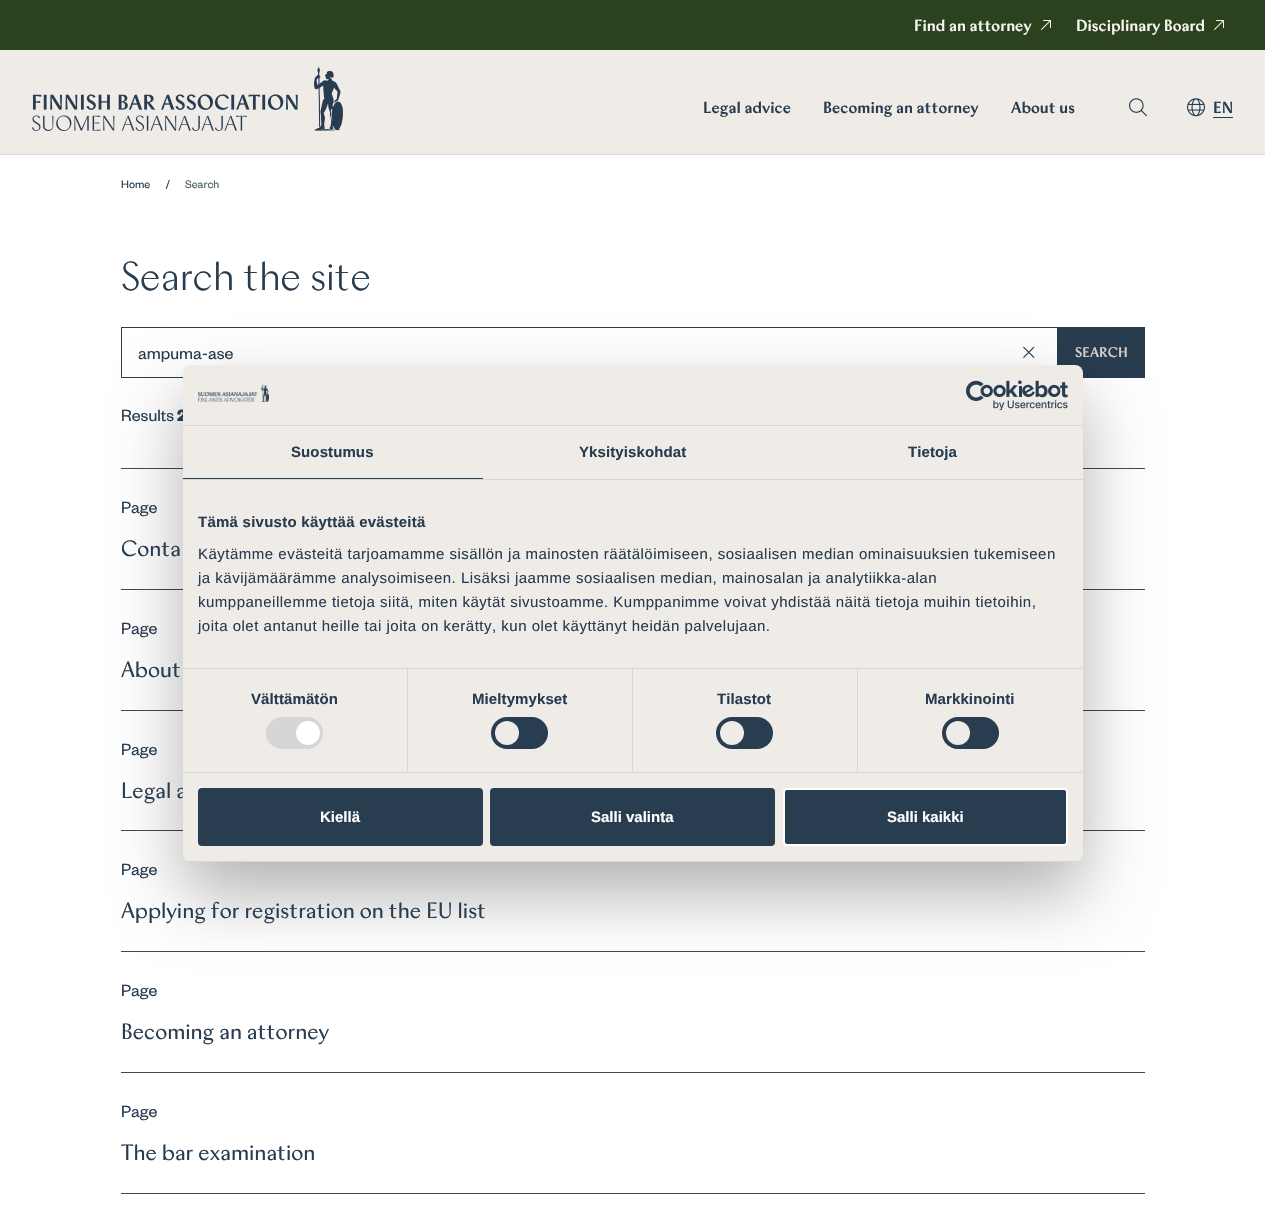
#include "include/core/SkBlurTypes.h"
#include "include/core/SkCanvas.h"
#include "include/core/SkData.h"
#include "include/core/SkFont.h"
#include "include/core/SkFontMgr.h"
#include "include/core/SkImage.h"
#include "include/core/SkMaskFilter.h"
#include "include/core/SkPaint.h"
#include "include/core/SkPathBuilder.h"
#include "include/core/SkTextBlob.h"
#include "include/effects/SkDashPathEffect.h"
#include "include/effects/SkGradientShader.h"
#include "include/utils/SkParsePath.h"

extern sk_sp<SkFontMgr> fontMgr;

void draw(SkCanvas* canvas) {
  SkPaint p;
  p.setAntiAlias(true);
  auto spacedText = [&](const char* s, float x, float y, const SkFont& font, const SkPaint& ink, float letter, float word) {
    std::vector<SkGlyphID> glyphs(font.countText(s, strlen(s), SkTextEncoding::kUTF8));
    std::vector<float> xs(glyphs.size());
    font.textToGlyphs(s, strlen(s), SkTextEncoding::kUTF8, glyphs);
    font.getXPos(glyphs, xs, x);
    float extra = 0;
    for (size_t i = 0; i < glyphs.size(); i++) {
      xs[i] += extra;
      extra += letter + word * (glyphs[i] == font.unicharToGlyph(' '));
    }
    canvas->drawTextBlob(SkTextBlob::MakeFromPosHGlyphs(glyphs, xs, y, font), 0, 0, ink);
  };
  canvas->clear(SK_ColorWHITE);
  p.setColor(SkColorSetRGB(44, 65, 30));
  canvas->drawRect(SkRect::MakeLTRB(0, 0, 1265, 50), p);
  canvas->drawImageRect(SkImages::DeferredFromEncodedData(SkData::MakeFromFileName("images/1.png")), SkRect::MakeLTRB(1041, 20, 1051, 30), SkSamplingOptions());
  canvas->drawImageRect(SkImages::DeferredFromEncodedData(SkData::MakeFromFileName("images/1.png")), SkRect::MakeLTRB(1214, 20, 1224, 30), SkSamplingOptions());
  p.setColor(SkColorSetRGB(239, 235, 231));
  canvas->drawRect(SkRect::MakeLTRB(0, 50, 1265, 154), p);
  canvas->drawImageRect(SkImages::DeferredFromEncodedData(SkData::MakeFromFileName("images/2.png")), SkRect::MakeLTRB(32, 67, 343, 131), SkSamplingOptions());
  canvas->drawImageRect(SkImages::DeferredFromEncodedData(SkData::MakeFromFileName("images/3.png")), SkRect::MakeLTRB(1129, 98, 1147, 117), SkSamplingOptions());
  canvas->drawImageRect(SkImages::DeferredFromEncodedData(SkData::MakeFromFileName("images/4.png")), SkRect::MakeLTRB(1187, 98, 1205, 117), SkSamplingOptions());
  p.setColor(SkColorSetRGB(40, 60, 80));
  canvas->drawRect(SkRect::MakeLTRB(1213, 117, 1233, 118), p);
  p.setColor(SkColorSetRGB(217, 217, 217));
  canvas->drawRect(SkRect::MakeLTRB(0, 154, 1265, 155), p);
  p.setStyle(SkPaint::kStroke_Style);
  p.setStrokeWidth(1);
  p.setColor(SkColorSetRGB(40, 60, 80));
  canvas->drawRect(SkRect::MakeLTRB(121.5f, 327.5f, 1057.5f, 377.5f), p);
  canvas->drawImageRect(SkImages::DeferredFromEncodedData(SkData::MakeFromFileName("images/5.png")), SkRect::MakeLTRB(1023, 346, 1035, 358), SkSamplingOptions());
  p.setStyle(SkPaint::kFill_Style);
  canvas->drawRect(SkRect::MakeLTRB(1058, 327, 1145, 378), p);
  p.setColor(SkColorSetRGB(71, 71, 71));
  canvas->drawRect(SkRect::MakeLTRB(121, 468, 1145, 469), p);
  canvas->drawRect(SkRect::MakeLTRB(121, 589, 1145, 590), p);
  canvas->drawRect(SkRect::MakeLTRB(121, 710, 1145, 711), p);
  canvas->drawRect(SkRect::MakeLTRB(121, 830, 1145, 831), p);
  canvas->drawRect(SkRect::MakeLTRB(121, 951, 1145, 952), p);
  canvas->drawRect(SkRect::MakeLTRB(121, 1072, 1145, 1073), p);
  canvas->drawRect(SkRect::MakeLTRB(121, 1193, 1145, 1194), p);
  p.setColor(SkColorSetARGB(77, 0, 0, 0));
  p.setMaskFilter(SkMaskFilter::MakeBlur(kNormal_SkBlurStyle, 34));
  canvas->drawRoundRect(SkRect::MakeLTRB(183, 397, 1083, 894), 8, 8, p);
  p.setMaskFilter(nullptr);
  SkFont font1(fontMgr->matchFamilyStyle("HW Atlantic", SkFontStyle(600, SkFontStyle::kNormal_Width, SkFontStyle::kUpright_Slant)), 16);
  font1.setSubpixel(true);
  p.setColor(SkColorSetRGB(247, 245, 243));
  canvas->drawString("Find an attorney", 914, 31, font1, p);
  canvas->drawString("Disciplinary Board", 1076, 31, font1, p);
  p.setColor(SkColorSetRGB(40, 60, 80));
  canvas->drawString("Legal advice", 703, 113, font1, p);
  canvas->drawString("Becoming an attorney", 823, 113, font1, p);
  canvas->drawString("About us", 1011, 113, font1, p);
  canvas->drawString("EN", 1213, 113, font1, p);
  SkFont font2(fontMgr->matchFamilyStyle("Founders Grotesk", SkFontStyle::Normal()), 12);
  font2.setSubpixel(true);
  canvas->drawString("Home", 121, 188, font2, p);
  canvas->drawString("/", 166, 188, font2, p);
  p.setColor(SkColorSetRGB(74, 96, 103));
  canvas->drawString("Search", 185, 188, font2, p);
  SkFont font3(fontMgr->matchFamilyStyle("HW Atlantic", SkFontStyle::Normal()), 40);
  font3.setSubpixel(true);
  p.setColor(SkColorSetRGB(40, 60, 80));
  canvas->drawString("Search the site", 121, 290, font3, p);
  SkFont font4(fontMgr->matchFamilyStyle("Founders Grotesk", SkFontStyle::Normal()), 18);
  font4.setSubpixel(true);
  canvas->drawString("ampuma-ase", 138, 359, font4, p);
  SkFont font5(fontMgr->matchFamilyStyle("HW Atlantic", SkFontStyle(600, SkFontStyle::kNormal_Width, SkFontStyle::kUpright_Slant)), 14);
  font5.setSubpixel(true);
  p.setColor(SkColorSetRGB(216, 204, 194));
  canvas->drawString("SEARCH", 1075, 357, font5, p);
  p.setColor(SkColorSetRGB(40, 60, 80));
  canvas->drawString("Results", 121, 421, font4, p);
  SkFont font6(fontMgr->matchFamilyStyle("Founders Grotesk", SkFontStyle::Bold()), 18);
  font6.setSubpixel(true);
  canvas->drawString("2", 177, 421, font6, p);
  canvas->drawString("Page", 121, 513, font4, p);
  SkFont font7(fontMgr->matchFamilyStyle("HW Atlantic", SkFontStyle(500, SkFontStyle::kNormal_Width, SkFontStyle::kUpright_Slant)), 22);
  font7.setSubpixel(true);
  canvas->drawString("Conta", 121, 556, font7, p);
  canvas->drawString("Page", 121, 634, font4, p);
  canvas->drawString("About", 121, 677, font7, p);
  canvas->drawString("Page", 121, 755, font4, p);
  canvas->drawString("Legal a", 121, 798, font7, p);
  canvas->drawString("Page", 121, 875, font4, p);
  canvas->drawString("Applying for registration on the EU list", 121, 918, font7, p);
  canvas->drawString("Page", 121, 996, font4, p);
  canvas->drawString("Becoming an attorney", 121, 1039, font7, p);
  canvas->drawString("Page", 121, 1117, font4, p);
  canvas->drawString("The bar examination", 121, 1160, font7, p);
  p.setColor(SkColorSetRGB(239, 235, 231));
  canvas->drawRoundRect(SkRect::MakeLTRB(183, 365, 1083, 862), 8, 8, p);
  p.setColor(SkColorSetRGB(214, 214, 214));
  canvas->drawRect(SkRect::MakeLTRB(183, 425, 1083, 426), p);
  canvas->drawImageRect(SkImages::DeferredFromEncodedData(SkData::MakeFromFileName("images/6.png")), SkRect::MakeLTRB(198, 384, 269, 403), SkSamplingOptions());
  canvas->drawImageRect(SkImages::DeferredFromEncodedData(SkData::MakeFromFileName("images/7.png")), SkRect::MakeLTRB(966, 380, 1068, 410), SkSamplingOptions());
  canvas->drawRect(SkRect::MakeLTRB(183, 479, 1083, 480), p);
  p.setColor(SkColorSetRGB(40, 61, 80));
  canvas->drawRect(SkRect::MakeLTRB(183, 478, 483, 479), p);
  SkFont font8(fontMgr->matchFamilyStyle("Liberation Sans", SkFontStyle::Bold()), 15);
  font8.setSubpixel(true);
  p.setColor(SkColorSetRGB(40, 60, 80));
  spacedText("Suostumus", 291, 457, font8, p, 0.1f, 0);
  spacedText("Yksityiskohdat", 579, 457, font8, p, 0.1f, 0);
  spacedText("Tietoja", 908, 457, font8, p, 0.1f, 0);
  p.setColor(SkColorSetRGB(214, 214, 214));
  canvas->drawRect(SkRect::MakeLTRB(183, 668, 1083, 669), p);
  p.setColor(SkColorSetRGB(40, 60, 80));
  spacedText("Tämä sivusto käyttää evästeitä", 198, 527, font8, p, 0.25f, 0);
  SkFont font9(fontMgr->matchFamilyStyle("Liberation Sans", SkFontStyle::Normal()), 15);
  font9.setSubpixel(true);
  spacedText("Käytämme evästeitä tarjoamamme sisällön ja mainosten räätälöimiseen, sosiaalisen median ominaisuuksien tukemiseen", 198, 559, font9, p, 0.5f, 0);
  spacedText("ja kävijämäärämme analysoimiseen. Lisäksi jaamme sosiaalisen median, mainosalan ja analytiikka-alan", 198, 583, font9, p, 0.5f, 0);
  spacedText("kumppaneillemme tietoja siitä, miten käytät sivustoamme. Kumppanimme voivat yhdistää näitä tietoja muihin tietoihin,", 198, 607, font9, p, 0.5f, 0);
  spacedText("joita olet antanut heille tai joita on kerätty, kun olet käyttänyt heidän palvelujaan.", 198, 631, font9, p, 0.5f, 0);
  p.setColor(SkColorSetRGB(214, 214, 214));
  canvas->drawRect(SkRect::MakeLTRB(183, 772, 1083, 773), p);
  canvas->drawRect(SkRect::MakeLTRB(407, 669, 408, 772), p);
  p.setColor(SkColorSetRGB(40, 60, 80));
  spacedText("Välttämätön", 251, 704, font8, p, 0.1f, 0);
  p.setColor(SkColorSetRGB(214, 214, 214));
  canvas->drawRoundRect(SkRect::MakeLTRB(266, 717, 323, 749), 16, 16, p);
  p.setColor(SK_ColorWHITE);
  canvas->drawCircle(308, 733, 12, p);
  p.setColor(SkColorSetRGB(214, 214, 214));
  canvas->drawRect(SkRect::MakeLTRB(632, 669, 633, 772), p);
  p.setColor(SkColorSetRGB(40, 60, 80));
  spacedText("Mieltymykset", 472, 704, font8, p, 0.1f, 0);
  p.setColor(SkColorSetRGB(40, 61, 80));
  canvas->drawRoundRect(SkRect::MakeLTRB(491, 717, 548, 749), 16, 16, p);
  p.setColor(SkColorSetRGB(239, 235, 231));
  canvas->drawCircle(507, 733, 12, p);
  p.setColor(SkColorSetRGB(214, 214, 214));
  canvas->drawRect(SkRect::MakeLTRB(857, 669, 858, 772), p);
  p.setColor(SkColorSetRGB(40, 60, 80));
  spacedText("Tilastot", 717, 704, font8, p, 0.1f, 0);
  p.setColor(SkColorSetRGB(40, 61, 80));
  canvas->drawRoundRect(SkRect::MakeLTRB(716, 717, 773, 749), 16, 16, p);
  p.setColor(SkColorSetRGB(239, 235, 231));
  canvas->drawCircle(732, 733, 12, p);
  p.setColor(SkColorSetRGB(40, 60, 80));
  spacedText("Markkinointi", 925, 704, font8, p, 0.1f, 0);
  p.setColor(SkColorSetRGB(40, 61, 80));
  canvas->drawRoundRect(SkRect::MakeLTRB(942, 717, 999, 749), 16, 16, p);
  p.setColor(SkColorSetRGB(239, 235, 231));
  canvas->drawCircle(958, 733, 12, p);
  canvas->save();
  canvas->clipPath(SkPathBuilder().moveTo(191, 365).lineTo(1075, 365).cubicTo(1079.5f, 365, 1083, 368.5f, 1083, 373).lineTo(1083, 854).cubicTo(1083, 858.5f, 1079.5f, 862, 1075, 862).lineTo(191, 862).cubicTo(186.5f, 862, 183, 858.5f, 183, 854).lineTo(183, 373).cubicTo(183, 368.5f, 186.5f, 365, 191, 365).close().detach(), true);
  p.setColor(SkColorSetRGB(214, 214, 214));
  canvas->drawRect(SkRect::MakeLTRB(183, 861, 1083, 862), p);
  canvas->restore();
  p.setColor(SkColorSetRGB(40, 61, 80));
  canvas->drawRoundRect(SkRect::MakeLTRB(199, 789, 482, 845), 3, 3, p);
  p.setStyle(SkPaint::kStroke_Style);
  p.setStrokeWidth(2);
  canvas->drawRoundRect(SkRect::MakeLTRB(199, 789, 482, 845), 3, 3, p);
  p.setStyle(SkPaint::kFill_Style);
  p.setColor(SK_ColorWHITE);
  canvas->drawString("Kiellä", 320, 822, font8, p);
  p.setColor(SkColorSetRGB(40, 61, 80));
  canvas->drawRoundRect(SkRect::MakeLTRB(491, 789, 774, 845), 3, 3, p);
  p.setStyle(SkPaint::kStroke_Style);
  canvas->drawRoundRect(SkRect::MakeLTRB(491, 789, 774, 845), 3, 3, p);
  p.setStyle(SkPaint::kFill_Style);
  p.setColor(SK_ColorWHITE);
  canvas->drawString("Salli valinta", 591, 822, font8, p);
  p.setColor(SkColorSetRGB(40, 61, 80));
  canvas->drawRoundRect(SkRect::MakeLTRB(784, 789, 1067, 845), 3, 3, p);
  p.setStyle(SkPaint::kStroke_Style);
  p.setColor(SK_ColorWHITE);
  canvas->drawRoundRect(SkRect::MakeLTRB(784, 789, 1067, 845), 3, 3, p);
  p.setStyle(SkPaint::kFill_Style);
  canvas->drawString("Salli kaikki", 887, 822, font8, p);
}
